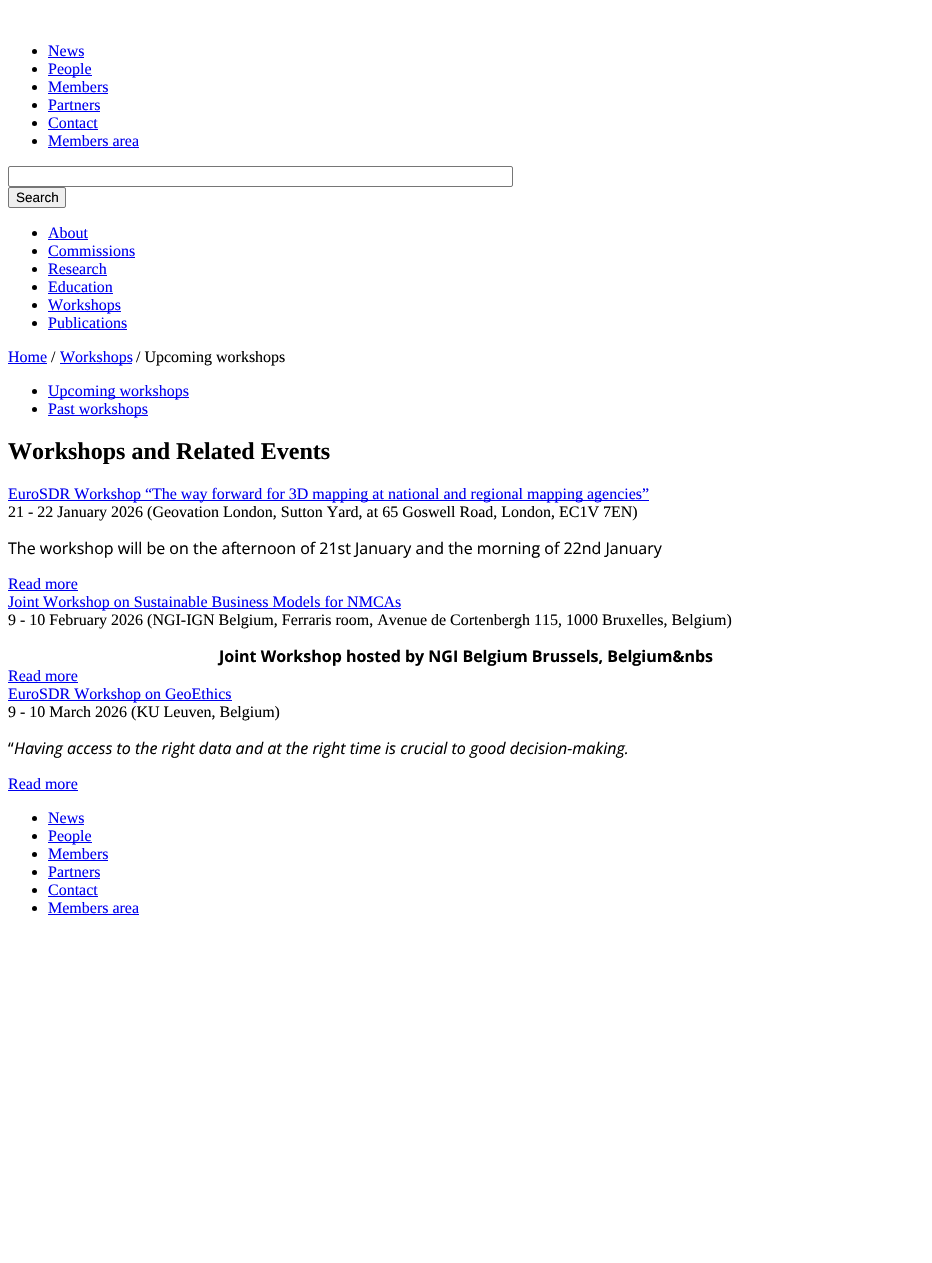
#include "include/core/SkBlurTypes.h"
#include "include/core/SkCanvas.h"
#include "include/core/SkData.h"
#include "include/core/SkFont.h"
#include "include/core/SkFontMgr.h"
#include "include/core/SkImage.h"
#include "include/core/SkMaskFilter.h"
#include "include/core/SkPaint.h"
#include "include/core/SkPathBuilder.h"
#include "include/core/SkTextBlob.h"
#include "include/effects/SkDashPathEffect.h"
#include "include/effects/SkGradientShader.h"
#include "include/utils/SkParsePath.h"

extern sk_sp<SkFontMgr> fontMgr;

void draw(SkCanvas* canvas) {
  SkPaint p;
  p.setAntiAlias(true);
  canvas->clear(SK_ColorWHITE);
  p.setColor(SK_ColorBLACK);
  canvas->drawCircle(34.5f, 51.5f, 2.5f, p);
  p.setColor(SkColorSetRGB(0, 0, 238));
  canvas->drawRect(SkRect::MakeLTRB(48, 57, 84, 58), p);
  p.setColor(SK_ColorBLACK);
  canvas->drawCircle(34.5f, 69.5f, 2.5f, p);
  p.setColor(SkColorSetRGB(0, 0, 238));
  canvas->drawRect(SkRect::MakeLTRB(48, 75, 92, 76), p);
  p.setColor(SK_ColorBLACK);
  canvas->drawCircle(34.5f, 87.5f, 2.5f, p);
  p.setColor(SkColorSetRGB(0, 0, 238));
  canvas->drawRect(SkRect::MakeLTRB(48, 93, 108, 94), p);
  p.setColor(SK_ColorBLACK);
  canvas->drawCircle(34.5f, 105.5f, 2.5f, p);
  p.setColor(SkColorSetRGB(0, 0, 238));
  canvas->drawRect(SkRect::MakeLTRB(48, 111, 100, 112), p);
  p.setColor(SK_ColorBLACK);
  canvas->drawCircle(34.5f, 123.5f, 2.5f, p);
  p.setColor(SkColorSetRGB(0, 0, 238));
  canvas->drawRect(SkRect::MakeLTRB(48, 129, 98, 130), p);
  p.setColor(SK_ColorBLACK);
  canvas->drawCircle(34.5f, 141.5f, 2.5f, p);
  p.setColor(SkColorSetRGB(0, 0, 238));
  canvas->drawRect(SkRect::MakeLTRB(48, 147, 139, 148), p);
  p.setStyle(SkPaint::kStroke_Style);
  p.setStrokeWidth(1);
  p.setColor(SkColorSetRGB(118, 118, 118));
  canvas->drawRoundRect(SkRect::MakeLTRB(8.5f, 166.5f, 512.5f, 186.5f), 1.5f, 1.5f, p);
  p.setStyle(SkPaint::kFill_Style);
  p.setColor(SkColorSetRGB(239, 239, 239));
  canvas->drawRoundRect(SkRect::MakeLTRB(8.5f, 187.5f, 65.5f, 207.5f), 1.5f, 1.5f, p);
  p.setStyle(SkPaint::kStroke_Style);
  p.setColor(SkColorSetRGB(118, 118, 118));
  canvas->drawRoundRect(SkRect::MakeLTRB(8.5f, 187.5f, 65.5f, 207.5f), 1.5f, 1.5f, p);
  p.setStyle(SkPaint::kFill_Style);
  p.setColor(SK_ColorBLACK);
  canvas->drawCircle(34.5f, 233.5f, 2.5f, p);
  p.setColor(SkColorSetRGB(0, 0, 238));
  canvas->drawRect(SkRect::MakeLTRB(48, 239, 88, 240), p);
  p.setColor(SK_ColorBLACK);
  canvas->drawCircle(34.5f, 251.5f, 2.5f, p);
  p.setColor(SkColorSetRGB(0, 0, 238));
  canvas->drawRect(SkRect::MakeLTRB(48, 257, 135, 258), p);
  p.setColor(SK_ColorBLACK);
  canvas->drawCircle(34.5f, 269.5f, 2.5f, p);
  p.setColor(SkColorSetRGB(0, 0, 238));
  canvas->drawRect(SkRect::MakeLTRB(48, 275, 107, 276), p);
  p.setColor(SK_ColorBLACK);
  canvas->drawCircle(34.5f, 287.5f, 2.5f, p);
  p.setColor(SkColorSetRGB(0, 0, 238));
  canvas->drawRect(SkRect::MakeLTRB(48, 293, 113, 294), p);
  p.setColor(SK_ColorBLACK);
  canvas->drawCircle(34.5f, 305.5f, 2.5f, p);
  p.setColor(SkColorSetRGB(0, 0, 238));
  canvas->drawRect(SkRect::MakeLTRB(48, 311, 121, 312), p);
  p.setColor(SK_ColorBLACK);
  canvas->drawCircle(34.5f, 323.5f, 2.5f, p);
  p.setColor(SkColorSetRGB(0, 0, 238));
  canvas->drawRect(SkRect::MakeLTRB(48, 329, 127, 330), p);
  canvas->drawRect(SkRect::MakeLTRB(8, 363, 47, 364), p);
  canvas->drawRect(SkRect::MakeLTRB(60, 363, 132, 364), p);
  p.setColor(SK_ColorBLACK);
  canvas->drawCircle(34.5f, 391.5f, 2.5f, p);
  p.setColor(SkColorSetRGB(0, 0, 238));
  canvas->drawRect(SkRect::MakeLTRB(48, 397, 189, 398), p);
  p.setColor(SK_ColorBLACK);
  canvas->drawCircle(34.5f, 409.5f, 2.5f, p);
  p.setColor(SkColorSetRGB(0, 0, 238));
  canvas->drawRect(SkRect::MakeLTRB(48, 415, 148, 416), p);
  canvas->drawRect(SkRect::MakeLTRB(8, 500, 649, 501), p);
  canvas->drawRect(SkRect::MakeLTRB(8, 590, 78, 591), p);
  canvas->drawRect(SkRect::MakeLTRB(8, 608, 401, 609), p);
  canvas->drawRect(SkRect::MakeLTRB(8, 682, 78, 683), p);
  canvas->drawRect(SkRect::MakeLTRB(8, 700, 232, 701), p);
  canvas->drawRect(SkRect::MakeLTRB(8, 790, 78, 791), p);
  p.setColor(SK_ColorBLACK);
  canvas->drawCircle(34.5f, 818.5f, 2.5f, p);
  p.setColor(SkColorSetRGB(0, 0, 238));
  canvas->drawRect(SkRect::MakeLTRB(48, 824, 84, 825), p);
  p.setColor(SK_ColorBLACK);
  canvas->drawCircle(34.5f, 836.5f, 2.5f, p);
  p.setColor(SkColorSetRGB(0, 0, 238));
  canvas->drawRect(SkRect::MakeLTRB(48, 842, 92, 843), p);
  p.setColor(SK_ColorBLACK);
  canvas->drawCircle(34.5f, 854.5f, 2.5f, p);
  p.setColor(SkColorSetRGB(0, 0, 238));
  canvas->drawRect(SkRect::MakeLTRB(48, 860, 108, 861), p);
  p.setColor(SK_ColorBLACK);
  canvas->drawCircle(34.5f, 872.5f, 2.5f, p);
  p.setColor(SkColorSetRGB(0, 0, 238));
  canvas->drawRect(SkRect::MakeLTRB(48, 878, 100, 879), p);
  p.setColor(SK_ColorBLACK);
  canvas->drawCircle(34.5f, 890.5f, 2.5f, p);
  p.setColor(SkColorSetRGB(0, 0, 238));
  canvas->drawRect(SkRect::MakeLTRB(48, 896, 98, 897), p);
  p.setColor(SK_ColorBLACK);
  canvas->drawCircle(34.5f, 908.5f, 2.5f, p);
  p.setColor(SkColorSetRGB(0, 0, 238));
  canvas->drawRect(SkRect::MakeLTRB(48, 914, 139, 915), p);
  SkFont font1(fontMgr->matchFamilyStyle("Liberation Serif", SkFontStyle::Normal()), 16);
  font1.setSubpixel(true);
  canvas->drawString("News", 48, 56, font1, p);
  canvas->drawString("People", 48, 74, font1, p);
  canvas->drawString("Members", 48, 92, font1, p);
  canvas->drawString("Partners", 48, 110, font1, p);
  canvas->drawString("Contact", 48, 128, font1, p);
  canvas->drawString("Members area", 48, 146, font1, p);
  SkFont font2(fontMgr->matchFamilyStyle("Liberation Sans", SkFontStyle::Normal()), 13.5f);
  font2.setSubpixel(true);
  p.setColor(SK_ColorBLACK);
  canvas->drawString("Search", 16, 202, font2, p);
  p.setColor(SkColorSetRGB(0, 0, 238));
  canvas->drawString("About", 48, 238, font1, p);
  canvas->drawString("Commissions", 48, 256, font1, p);
  canvas->drawString("Research", 48, 274, font1, p);
  canvas->drawString("Education", 48, 292, font1, p);
  canvas->drawString("Workshops", 48, 310, font1, p);
  canvas->drawString("Publications", 48, 328, font1, p);
  canvas->drawString("Home", 8, 362, font1, p);
  p.setColor(SK_ColorBLACK);
  canvas->drawString("/", 51, 362, font1, p);
  p.setColor(SkColorSetRGB(0, 0, 238));
  canvas->drawString("Workshops", 60, 362, font1, p);
  p.setColor(SK_ColorBLACK);
  canvas->drawString("/ Upcoming workshops", 136, 362, font1, p);
  p.setColor(SkColorSetRGB(0, 0, 238));
  canvas->drawString("Upcoming workshops", 48, 396, font1, p);
  canvas->drawString("Past workshops", 48, 414, font1, p);
  SkFont font3(fontMgr->matchFamilyStyle("Liberation Serif", SkFontStyle::Bold()), 24);
  font3.setSubpixel(true);
  p.setColor(SK_ColorBLACK);
  canvas->drawString("Workshops and Related Events", 8, 459, font3, p);
  p.setColor(SkColorSetRGB(0, 0, 238));
  canvas->drawString("EuroSDR Workshop “The way forward for 3D mapping at national and regional mapping agencies”", 8, 499, font1, p);
  p.setColor(SK_ColorBLACK);
  canvas->drawString("21 - 22 January 2026 (Geovation London, Sutton Yard, at 65 Goswell Road, London, EC1V 7EN)", 8, 517, font1, p);
  SkFont font4(fontMgr->matchFamilyStyle("Open Sans", SkFontStyle::Normal()), 16);
  font4.setSubpixel(true);
  canvas->drawString("The workshop will be on the afternoon of 21st January and the morning of 22nd January", 8, 554, font4, p);
  p.setColor(SkColorSetRGB(0, 0, 238));
  canvas->drawString("Read more", 8, 589, font1, p);
  canvas->drawString("Joint Workshop on Sustainable Business Models for NMCAs", 8, 607, font1, p);
  p.setColor(SK_ColorBLACK);
  canvas->drawString("9 - 10 February 2026 (NGI-IGN Belgium, Ferraris room, Avenue de Cortenbergh 115, 1000 Bruxelles, Belgium)", 8, 625, font1, p);
  SkFont font5(fontMgr->matchFamilyStyle("Open Sans", SkFontStyle::Bold()), 16);
  font5.setSubpixel(true);
  canvas->drawString("Joint Workshop hosted by NGI Belgium Brussels, Belgium&nbs", 219, 662, font5, p);
  p.setColor(SkColorSetRGB(0, 0, 238));
  canvas->drawString("Read more", 8, 681, font1, p);
  canvas->drawString("EuroSDR Workshop on GeoEthics", 8, 699, font1, p);
  p.setColor(SK_ColorBLACK);
  canvas->drawString("9 - 10 March 2026 (KU Leuven, Belgium)", 8, 717, font1, p);
  canvas->drawString("“", 8, 754, font4, p);
  SkFont font6(fontMgr->matchFamilyStyle("Open Sans", SkFontStyle::Italic()), 16);
  font6.setSubpixel(true);
  canvas->drawString("Having access to the right data and at the right time is crucial to good decision-making.", 14, 754, font6, p);
  p.setColor(SkColorSetRGB(0, 0, 238));
  canvas->drawString("Read more", 8, 789, font1, p);
  canvas->drawString("News", 48, 823, font1, p);
  canvas->drawString("People", 48, 841, font1, p);
  canvas->drawString("Members", 48, 859, font1, p);
  canvas->drawString("Partners", 48, 877, font1, p);
  canvas->drawString("Contact", 48, 895, font1, p);
  canvas->drawString("Members area", 48, 913, font1, p);
}
